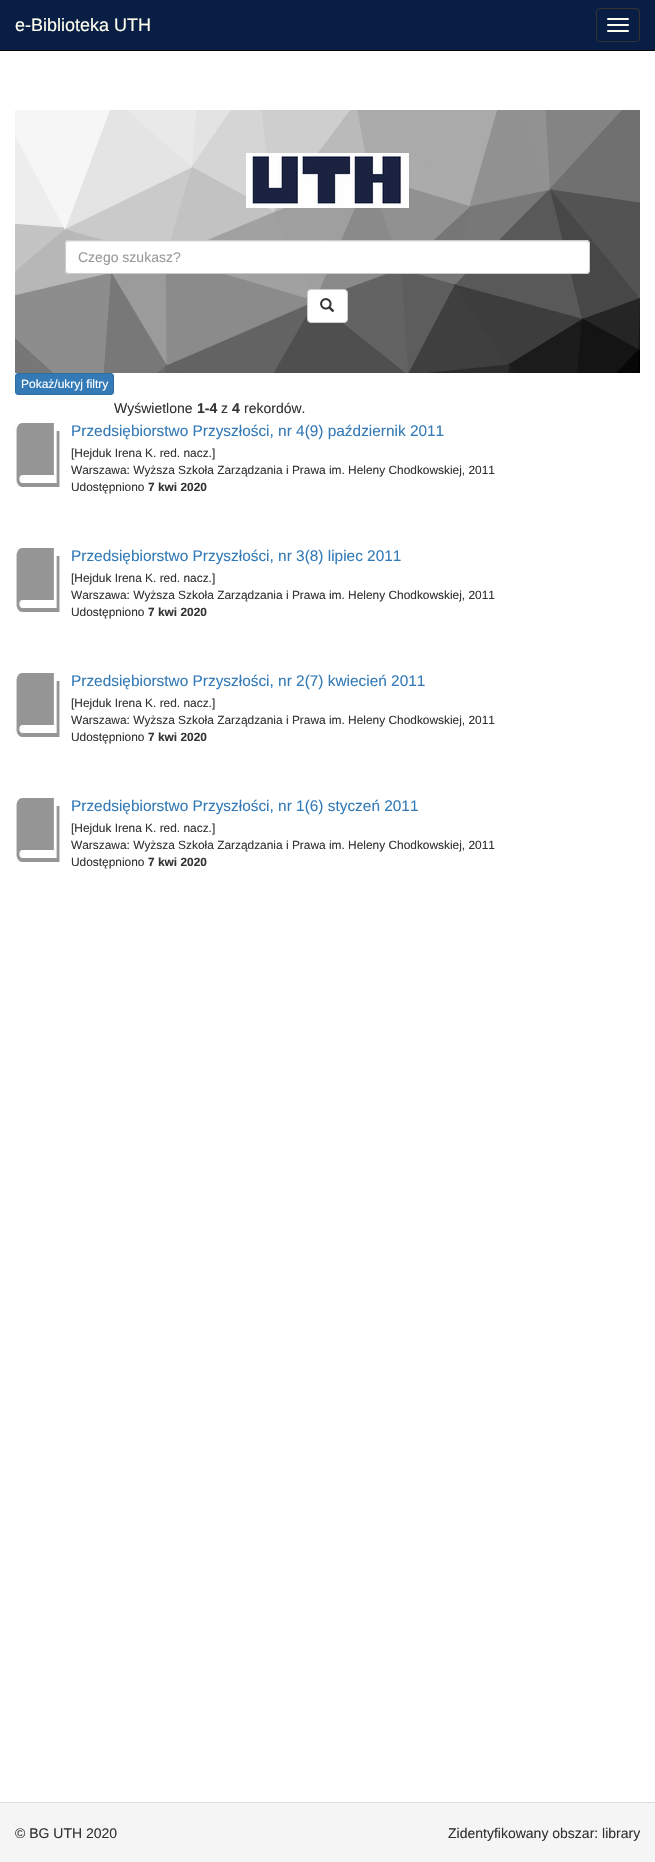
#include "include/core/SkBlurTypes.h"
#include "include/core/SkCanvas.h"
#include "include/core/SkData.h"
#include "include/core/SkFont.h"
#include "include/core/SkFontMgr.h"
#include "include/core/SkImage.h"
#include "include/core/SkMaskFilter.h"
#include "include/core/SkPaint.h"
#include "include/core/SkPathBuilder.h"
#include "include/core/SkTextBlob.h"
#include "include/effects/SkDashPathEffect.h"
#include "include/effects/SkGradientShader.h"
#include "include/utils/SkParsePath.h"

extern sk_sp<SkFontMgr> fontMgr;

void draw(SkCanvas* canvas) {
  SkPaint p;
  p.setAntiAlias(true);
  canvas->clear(SK_ColorWHITE);
  p.setColor(SkColorSetRGB(8, 30, 69));
  canvas->drawRect(SkRect::MakeLTRB(0, 0, 655, 50), p);
  p.setColor(SkColorSetRGB(8, 8, 8));
  canvas->drawRect(SkRect::MakeLTRB(0, 50, 655, 51), p);
  p.setStyle(SkPaint::kStroke_Style);
  p.setStrokeWidth(1);
  p.setColor(SkColorSetRGB(51, 51, 51));
  canvas->drawRoundRect(SkRect::MakeLTRB(596.5f, 8.5f, 639.5f, 41.5f), 3.5f, 3.5f, p);
  p.setStyle(SkPaint::kFill_Style);
  p.setColor(SkColorSetRGB(255, 255, 238));
  canvas->drawRoundRect(SkRect::MakeLTRB(607, 18, 629, 20), 1, 1, p);
  canvas->drawRoundRect(SkRect::MakeLTRB(607, 24, 629, 26), 1, 1, p);
  canvas->drawRoundRect(SkRect::MakeLTRB(607, 30, 629, 32), 1, 1, p);
  canvas->drawImageRect(SkImages::DeferredFromEncodedData(SkData::MakeFromFileName("images/1.png")), SkRect::MakeLTRB(15, 110, 640, 373), SkSamplingOptions());
  canvas->drawImageRect(SkImages::DeferredFromEncodedData(SkData::MakeFromFileName("images/2.png")), SkRect::MakeLTRB(246, 153, 409, 208), SkSamplingOptions());
  p.setColor(SK_ColorWHITE);
  canvas->drawRoundRect(SkRect::MakeLTRB(65, 240, 590, 274), 4, 4, p);
  p.setColor(SkColorSetRGB(236, 236, 236));
  canvas->drawPath(SkPathBuilder().moveTo(69, 242).lineTo(586, 242).cubicTo(588, 242, 589, 243, 589, 245).lineTo(589, 243).lineTo(587, 241).lineTo(69, 241).cubicTo(67, 241, 66, 243, 66, 245).cubicTo(66, 243, 67, 242, 69, 242).close().detach(), p);
  p.setStyle(SkPaint::kStroke_Style);
  p.setColor(SkColorSetRGB(204, 204, 204));
  canvas->drawRoundRect(SkRect::MakeLTRB(65.5f, 240.5f, 589.5f, 273.5f), 3.5f, 3.5f, p);
  p.setStyle(SkPaint::kFill_Style);
  p.setColor(SK_ColorWHITE);
  canvas->drawRoundRect(SkRect::MakeLTRB(307.5f, 289.5f, 347.5f, 322.5f), 3.5f, 3.5f, p);
  p.setStyle(SkPaint::kStroke_Style);
  p.setColor(SkColorSetRGB(204, 204, 204));
  canvas->drawRoundRect(SkRect::MakeLTRB(307.5f, 289.5f, 347.5f, 322.5f), 3.5f, 3.5f, p);
  canvas->drawImageRect(SkImages::DeferredFromEncodedData(SkData::MakeFromFileName("images/3.png")), SkRect::MakeLTRB(320, 298, 335, 312), SkSamplingOptions());
  p.setStyle(SkPaint::kFill_Style);
  p.setColor(SkColorSetRGB(51, 122, 183));
  canvas->drawRoundRect(SkRect::MakeLTRB(15.5f, 373.5f, 113.5f, 394.5f), 2.5f, 2.5f, p);
  p.setStyle(SkPaint::kStroke_Style);
  p.setColor(SkColorSetRGB(46, 109, 164));
  canvas->drawRoundRect(SkRect::MakeLTRB(15.5f, 373.5f, 113.5f, 394.5f), 2.5f, 2.5f, p);
  canvas->drawImageRect(SkImages::DeferredFromEncodedData(SkData::MakeFromFileName("images/4.png")), SkRect::MakeLTRB(15, 423, 60, 487), SkSamplingOptions());
  canvas->drawImageRect(SkImages::DeferredFromEncodedData(SkData::MakeFromFileName("images/4.png")), SkRect::MakeLTRB(15, 548, 60, 612), SkSamplingOptions());
  canvas->drawImageRect(SkImages::DeferredFromEncodedData(SkData::MakeFromFileName("images/4.png")), SkRect::MakeLTRB(15, 673, 60, 737), SkSamplingOptions());
  canvas->drawImageRect(SkImages::DeferredFromEncodedData(SkData::MakeFromFileName("images/4.png")), SkRect::MakeLTRB(15, 798, 60, 862), SkSamplingOptions());
  p.setStyle(SkPaint::kFill_Style);
  p.setColor(SkColorSetRGB(245, 245, 245));
  canvas->drawRect(SkRect::MakeLTRB(0, 1803, 655, 1862), p);
  p.setColor(SkColorSetRGB(221, 221, 221));
  canvas->drawRect(SkRect::MakeLTRB(0, 1802, 655, 1803), p);
  SkFont font1(fontMgr->matchFamilyStyle("Liberation Sans", SkFontStyle::Normal()), 18);
  font1.setSubpixel(true);
  p.setColor(SkColorSetRGB(255, 255, 238));
  canvas->drawString("e-Biblioteka UTH", 15, 31, font1, p);
  SkFont font2(fontMgr->matchFamilyStyle("Liberation Sans", SkFontStyle::Normal()), 14);
  font2.setSubpixel(true);
  p.setColor(SkColorSetRGB(153, 153, 153));
  canvas->drawString("Czego szukasz?", 78, 262, font2, p);
  SkFont font3(fontMgr->matchFamilyStyle("Liberation Sans", SkFontStyle::Normal()), 12);
  font3.setSubpixel(true);
  p.setColor(SK_ColorWHITE);
  canvas->drawString("Pokaż/ukryj filtry", 21, 388, font3, p);
  p.setColor(SkColorSetRGB(51, 51, 51));
  canvas->drawString("Wyświetlone", 114, 413, font2, p);
  SkFont font4(fontMgr->matchFamilyStyle("Liberation Sans", SkFontStyle::Bold()), 14);
  font4.setSubpixel(true);
  canvas->drawString("1-4", 197, 413, font4, p);
  canvas->drawString("z", 221, 413, font2, p);
  canvas->drawString("4", 232, 413, font4, p);
  canvas->drawString("rekordów.", 244, 413, font2, p);
  SkFont font5(fontMgr->matchFamilyStyle("Liberation Sans", SkFontStyle::Normal()), 15.4f);
  font5.setSubpixel(true);
  p.setColor(SkColorSetRGB(51, 122, 183));
  canvas->drawString("Przedsiębiorstwo Przyszłości, nr 4(9) październik 2011", 71, 436, font5, p);
  SkFont font6(fontMgr->matchFamilyStyle("Liberation Sans", SkFontStyle::Normal()), 11.9f);
  font6.setSubpixel(true);
  p.setColor(SkColorSetRGB(51, 51, 51));
  canvas->drawString("[Hejduk Irena K. red. nacz.]", 71, 457, font6, p);
  canvas->drawString("Warszawa: Wyższa Szkoła Zarządzania i Prawa im. Heleny Chodkowskiej, 2011", 71, 474, font6, p);
  canvas->drawString("Udostępniono", 71, 491, font6, p);
  SkFont font7(fontMgr->matchFamilyStyle("Liberation Sans", SkFontStyle::Bold()), 11.9f);
  font7.setSubpixel(true);
  canvas->drawString("7 kwi 2020", 148, 491, font7, p);
  p.setColor(SkColorSetRGB(51, 122, 183));
  canvas->drawString("Przedsiębiorstwo Przyszłości, nr 3(8) lipiec 2011", 71, 561, font5, p);
  p.setColor(SkColorSetRGB(51, 51, 51));
  canvas->drawString("[Hejduk Irena K. red. nacz.]", 71, 582, font6, p);
  canvas->drawString("Warszawa: Wyższa Szkoła Zarządzania i Prawa im. Heleny Chodkowskiej, 2011", 71, 599, font6, p);
  canvas->drawString("Udostępniono", 71, 616, font6, p);
  canvas->drawString("7 kwi 2020", 148, 616, font7, p);
  p.setColor(SkColorSetRGB(51, 122, 183));
  canvas->drawString("Przedsiębiorstwo Przyszłości, nr 2(7) kwiecień 2011", 71, 686, font5, p);
  p.setColor(SkColorSetRGB(51, 51, 51));
  canvas->drawString("[Hejduk Irena K. red. nacz.]", 71, 707, font6, p);
  canvas->drawString("Warszawa: Wyższa Szkoła Zarządzania i Prawa im. Heleny Chodkowskiej, 2011", 71, 724, font6, p);
  canvas->drawString("Udostępniono", 71, 741, font6, p);
  canvas->drawString("7 kwi 2020", 148, 741, font7, p);
  p.setColor(SkColorSetRGB(51, 122, 183));
  canvas->drawString("Przedsiębiorstwo Przyszłości, nr 1(6) styczeń 2011", 71, 811, font5, p);
  p.setColor(SkColorSetRGB(51, 51, 51));
  canvas->drawString("[Hejduk Irena K. red. nacz.]", 71, 832, font6, p);
  canvas->drawString("Warszawa: Wyższa Szkoła Zarządzania i Prawa im. Heleny Chodkowskiej, 2011", 71, 849, font6, p);
  canvas->drawString("Udostępniono", 71, 866, font6, p);
  canvas->drawString("7 kwi 2020", 148, 866, font7, p);
  canvas->drawString("© BG UTH 2020", 15, 1838, font2, p);
  canvas->drawString("Zidentyfikowany obszar: library", 448, 1838, font2, p);
}
